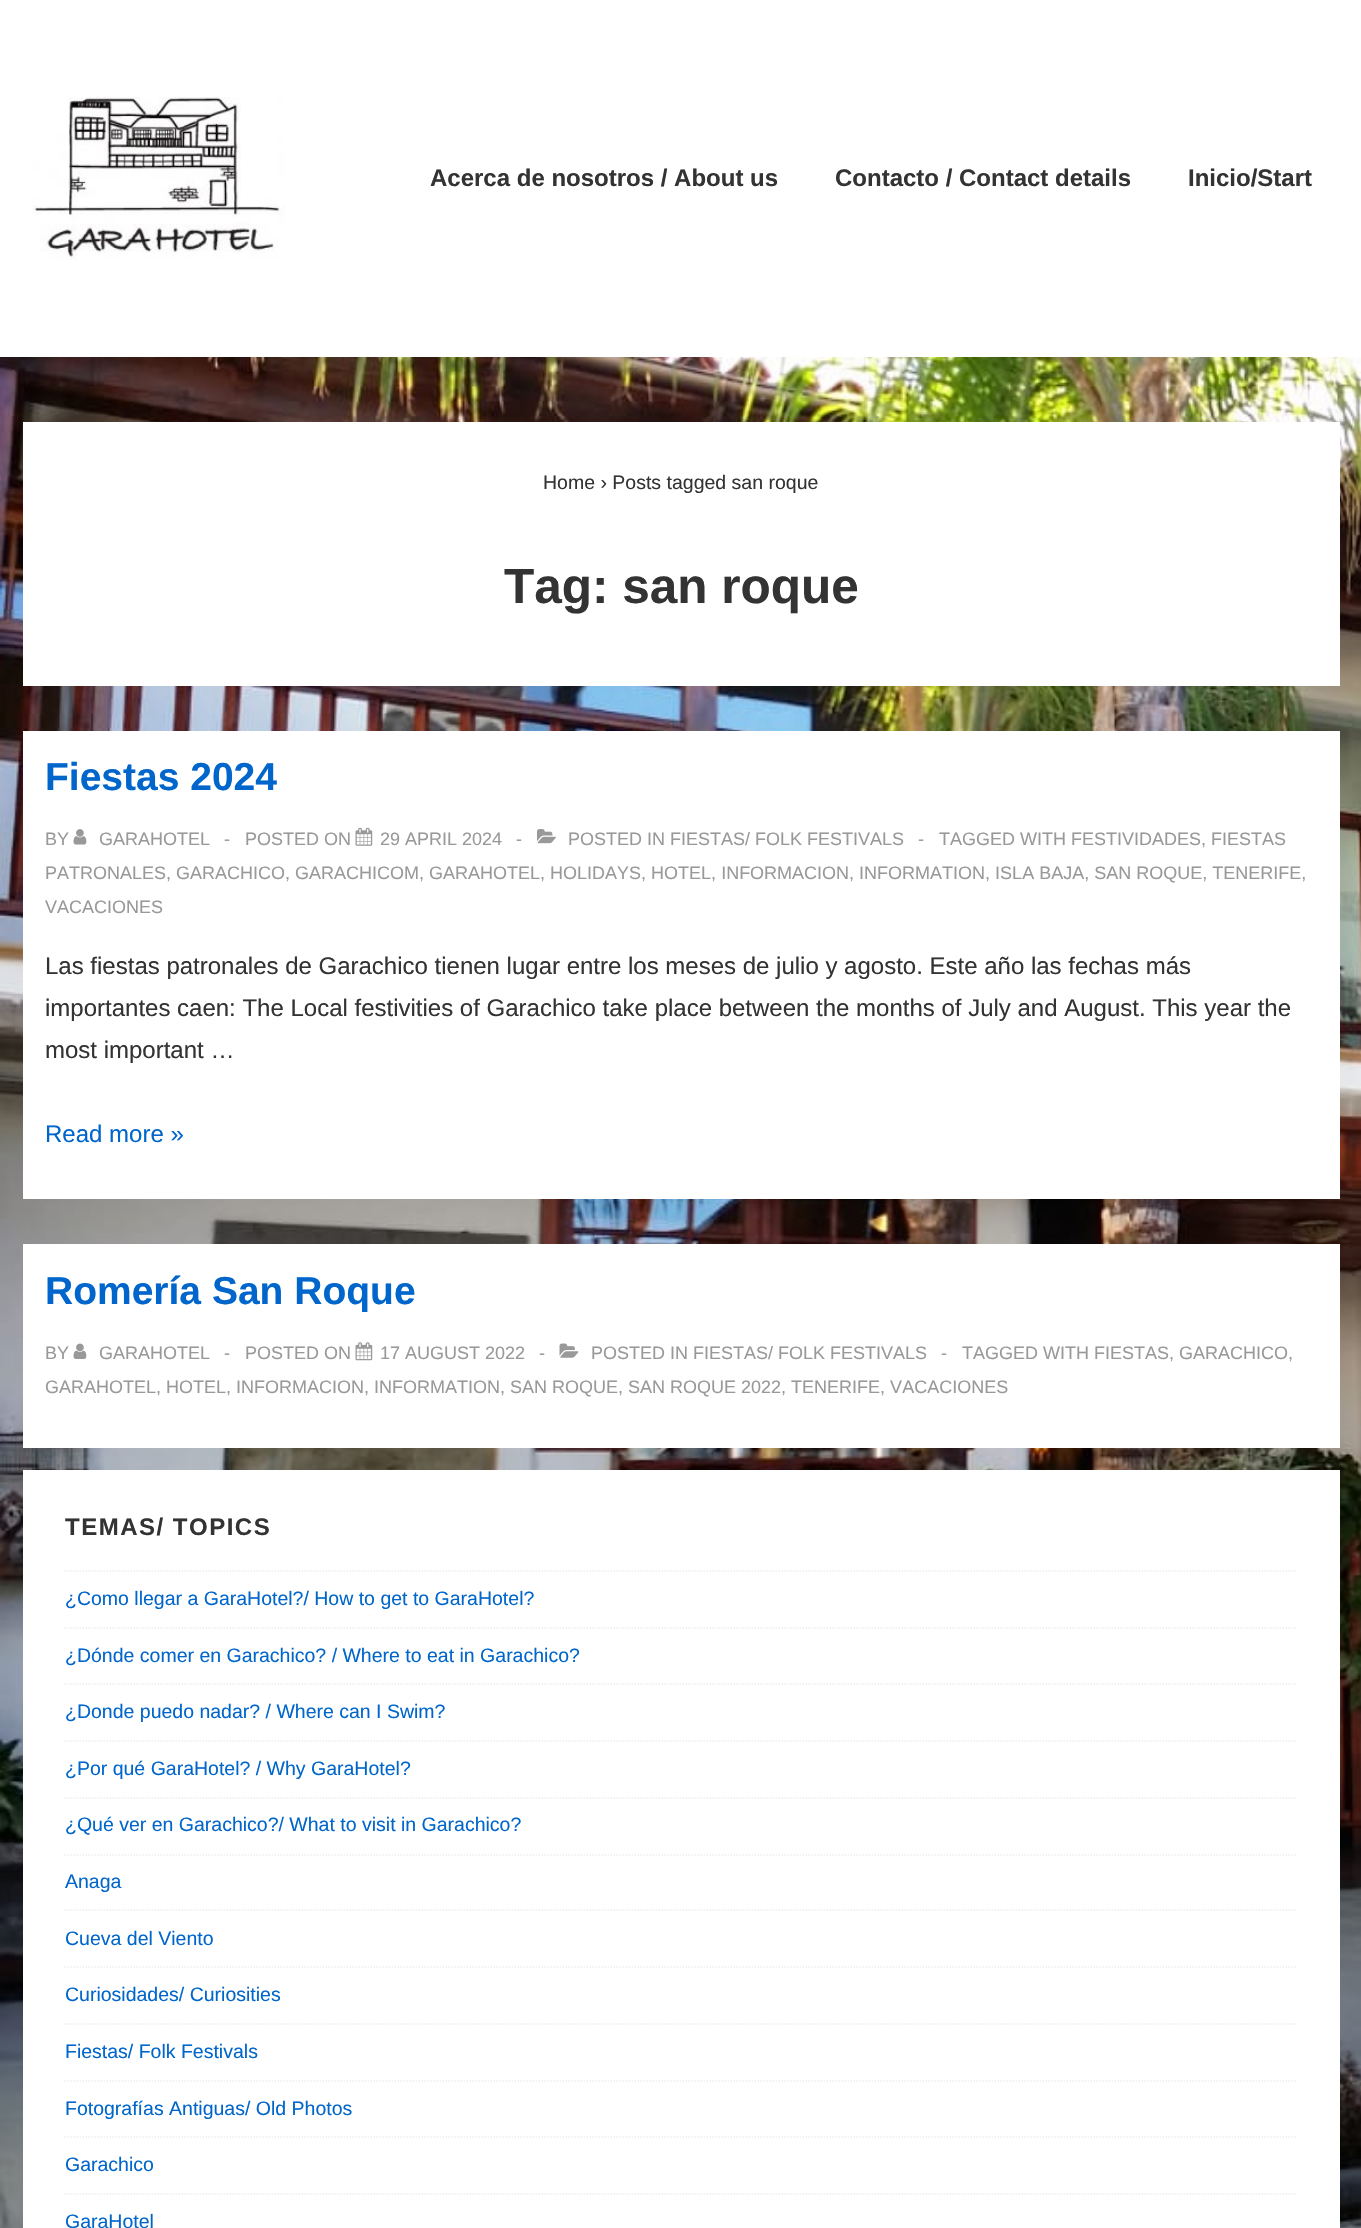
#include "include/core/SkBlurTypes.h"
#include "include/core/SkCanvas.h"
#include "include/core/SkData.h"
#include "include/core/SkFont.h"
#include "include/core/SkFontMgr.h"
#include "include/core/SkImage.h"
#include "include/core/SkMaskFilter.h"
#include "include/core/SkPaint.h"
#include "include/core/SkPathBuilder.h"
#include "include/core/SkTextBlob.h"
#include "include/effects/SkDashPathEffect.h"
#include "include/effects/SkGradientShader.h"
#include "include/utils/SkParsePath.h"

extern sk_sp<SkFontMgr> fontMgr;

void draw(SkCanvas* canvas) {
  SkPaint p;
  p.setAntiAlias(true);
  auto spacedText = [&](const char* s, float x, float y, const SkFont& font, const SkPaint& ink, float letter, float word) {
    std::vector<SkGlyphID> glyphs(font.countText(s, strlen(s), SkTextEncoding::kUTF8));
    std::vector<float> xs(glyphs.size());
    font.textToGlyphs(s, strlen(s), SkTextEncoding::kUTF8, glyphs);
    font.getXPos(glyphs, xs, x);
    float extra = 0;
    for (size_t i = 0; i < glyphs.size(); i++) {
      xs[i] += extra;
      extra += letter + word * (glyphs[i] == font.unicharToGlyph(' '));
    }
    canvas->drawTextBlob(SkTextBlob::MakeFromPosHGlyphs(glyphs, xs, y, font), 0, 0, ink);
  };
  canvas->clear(SK_ColorWHITE);
  canvas->drawImageRect(SkImages::DeferredFromEncodedData(SkData::MakeFromFileName("images/1.png")), SkRect::MakeLTRB(0, 357, 1361, 2228), SkSamplingOptions());
  canvas->drawImageRect(SkImages::DeferredFromEncodedData(SkData::MakeFromFileName("images/2.png")), SkRect::MakeLTRB(32, 97, 285, 260), SkSamplingOptions());
  p.setColor(SK_ColorWHITE);
  canvas->drawRect(SkRect::MakeLTRB(23, 422, 1340, 686), p);
  canvas->drawRect(SkRect::MakeLTRB(23, 731, 1340, 1199), p);
  canvas->drawImageRect(SkImages::DeferredFromEncodedData(SkData::MakeFromFileName("images/3.png")), SkRect::MakeLTRB(73, 829, 87, 845), SkSamplingOptions());
  canvas->drawImageRect(SkImages::DeferredFromEncodedData(SkData::MakeFromFileName("images/4.png")), SkRect::MakeLTRB(355, 827, 373, 846), SkSamplingOptions());
  canvas->drawImageRect(SkImages::DeferredFromEncodedData(SkData::MakeFromFileName("images/5.png")), SkRect::MakeLTRB(537, 829, 556, 844), SkSamplingOptions());
  canvas->drawRect(SkRect::MakeLTRB(23, 1244, 1340, 1448), p);
  canvas->drawImageRect(SkImages::DeferredFromEncodedData(SkData::MakeFromFileName("images/6.png")), SkRect::MakeLTRB(73, 1343, 87, 1359), SkSamplingOptions());
  canvas->drawImageRect(SkImages::DeferredFromEncodedData(SkData::MakeFromFileName("images/7.png")), SkRect::MakeLTRB(355, 1342, 373, 1361), SkSamplingOptions());
  canvas->drawImageRect(SkImages::DeferredFromEncodedData(SkData::MakeFromFileName("images/8.png")), SkRect::MakeLTRB(559, 1343, 579, 1358), SkSamplingOptions());
  canvas->drawRect(SkRect::MakeLTRB(23, 1470, 1340, 2228), p);
  p.setStyle(SkPaint::kStroke_Style);
  p.setStrokeWidth(1.5f);
  p.setColor(SkColorSetRGB(238, 238, 238));
  p.setPathEffect(SkDashPathEffect::Make({{1.5f, 1.5f}}, 0));
  canvas->drawPath(SkPathBuilder().moveTo(64.5f, 1571).lineTo(1297.5f, 1571).detach(), p);
  p.setPathEffect(nullptr);
  p.setPathEffect(SkDashPathEffect::Make({{1.5f, 1.5f}}, 0));
  canvas->drawPath(SkPathBuilder().moveTo(64.5f, 1628).lineTo(1297.5f, 1628).detach(), p);
  p.setPathEffect(nullptr);
  p.setPathEffect(SkDashPathEffect::Make({{1.5f, 1.5f}}, 0));
  canvas->drawPath(SkPathBuilder().moveTo(64.5f, 1684).lineTo(1297.5f, 1684).detach(), p);
  p.setPathEffect(nullptr);
  p.setPathEffect(SkDashPathEffect::Make({{1.5f, 1.5f}}, 0));
  canvas->drawPath(SkPathBuilder().moveTo(64.5f, 1741).lineTo(1297.5f, 1741).detach(), p);
  p.setPathEffect(nullptr);
  p.setPathEffect(SkDashPathEffect::Make({{1.5f, 1.5f}}, 0));
  canvas->drawPath(SkPathBuilder().moveTo(64.5f, 1798).lineTo(1297.5f, 1798).detach(), p);
  p.setPathEffect(nullptr);
  p.setPathEffect(SkDashPathEffect::Make({{1.5f, 1.5f}}, 0));
  canvas->drawPath(SkPathBuilder().moveTo(64.5f, 1855).lineTo(1297.5f, 1855).detach(), p);
  p.setPathEffect(nullptr);
  p.setPathEffect(SkDashPathEffect::Make({{1.5f, 1.5f}}, 0));
  canvas->drawPath(SkPathBuilder().moveTo(64.5f, 1910).lineTo(1297.5f, 1910).detach(), p);
  p.setPathEffect(nullptr);
  p.setPathEffect(SkDashPathEffect::Make({{1.5f, 1.5f}}, 0));
  canvas->drawPath(SkPathBuilder().moveTo(64.5f, 1967).lineTo(1297.5f, 1967).detach(), p);
  p.setPathEffect(nullptr);
  p.setPathEffect(SkDashPathEffect::Make({{1.5f, 1.5f}}, 0));
  canvas->drawPath(SkPathBuilder().moveTo(64.5f, 2024).lineTo(1297.5f, 2024).detach(), p);
  p.setPathEffect(nullptr);
  p.setPathEffect(SkDashPathEffect::Make({{1.5f, 1.5f}}, 0));
  canvas->drawPath(SkPathBuilder().moveTo(64.5f, 2081).lineTo(1297.5f, 2081).detach(), p);
  p.setPathEffect(nullptr);
  p.setPathEffect(SkDashPathEffect::Make({{1.5f, 1.5f}}, 0));
  canvas->drawPath(SkPathBuilder().moveTo(64.5f, 2137).lineTo(1297.5f, 2137).detach(), p);
  p.setPathEffect(nullptr);
  p.setPathEffect(SkDashPathEffect::Make({{1.5f, 1.5f}}, 0));
  canvas->drawPath(SkPathBuilder().moveTo(64.5f, 2194).lineTo(1297.5f, 2194).detach(), p);
  p.setPathEffect(nullptr);
  SkFont font1(fontMgr->matchFamilyStyle("Liberation Sans", SkFontStyle::Bold()), 24);
  font1.setSubpixel(true);
  p.setStyle(SkPaint::kFill_Style);
  p.setColor(SkColorSetRGB(51, 51, 51));
  canvas->drawString("Acerca de nosotros / About us", 430, 186, font1, p);
  canvas->drawString("Contacto / Contact details", 835, 186, font1, p);
  canvas->drawString("Inicio/Start", 1188, 186, font1, p);
  SkFont font2(fontMgr->matchFamilyStyle("Liberation Sans", SkFontStyle::Normal()), 19.5f);
  font2.setSubpixel(true);
  canvas->drawString("Home › Posts tagged san roque", 543, 489, font2, p);
  SkFont font3(fontMgr->matchFamilyStyle("Liberation Sans", SkFontStyle::Bold()), 49.5f);
  font3.setSubpixel(true);
  canvas->drawString("Tag: san roque", 504, 603, font3, p);
  SkFont font4(fontMgr->matchFamilyStyle("Liberation Sans", SkFontStyle::Bold()), 39);
  font4.setSubpixel(true);
  p.setColor(SkColorSetRGB(0, 102, 204));
  canvas->drawString("Fiestas 2024", 45, 790, font4, p);
  SkFont font5(fontMgr->matchFamilyStyle("Liberation Sans", SkFontStyle::Normal()), 18);
  font5.setSubpixel(true);
  p.setColor(SkColorSetRGB(153, 153, 153));
  canvas->drawString("BY", 45, 845, font5, p);
  canvas->drawString("GARAHOTEL", 99, 845, font5, p);
  canvas->drawString("-", 224, 845, font5, p);
  canvas->drawString("POSTED ON", 245, 845, font5, p);
  canvas->drawString("29 APRIL 2024", 380, 845, font5, p);
  canvas->drawString("-", 516, 845, font5, p);
  canvas->drawString("POSTED IN FIESTAS/ FOLK FESTIVALS", 568, 845, font5, p);
  canvas->drawString("-", 918, 845, font5, p);
  canvas->drawString("TAGGED WITH FESTIVIDADES, FIESTAS", 939, 845, font5, p);
  canvas->drawString("PATRONALES, GARACHICO, GARACHICOM, GARAHOTEL, HOLIDAYS, HOTEL, INFORMACION, INFORMATION, ISLA BAJA, SAN ROQUE, TENERIFE,", 45, 879, font5, p);
  canvas->drawString("VACACIONES", 45, 913, font5, p);
  SkFont font6(fontMgr->matchFamilyStyle("Liberation Sans", SkFontStyle::Normal()), 24);
  font6.setSubpixel(true);
  p.setColor(SkColorSetRGB(51, 51, 51));
  canvas->drawString("Las fiestas patronales de Garachico tienen lugar entre los meses de julio y agosto. Este año las fechas más", 45, 974, font6, p);
  canvas->drawString("importantes caen: The Local festivities of Garachico take place between the months of July and August. This year the", 45, 1016, font6, p);
  canvas->drawString("most important …", 45, 1058, font6, p);
  p.setColor(SkColorSetRGB(0, 102, 204));
  canvas->drawString("Read more »", 45, 1142, font6, p);
  canvas->drawString("Romería San Roque", 45, 1304, font4, p);
  p.setColor(SkColorSetRGB(153, 153, 153));
  canvas->drawString("BY", 45, 1359, font5, p);
  canvas->drawString("GARAHOTEL", 99, 1359, font5, p);
  canvas->drawString("-", 224, 1359, font5, p);
  canvas->drawString("POSTED ON", 245, 1359, font5, p);
  canvas->drawString("17 AUGUST 2022", 380, 1359, font5, p);
  canvas->drawString("-", 539, 1359, font5, p);
  canvas->drawString("POSTED IN FIESTAS/ FOLK FESTIVALS", 591, 1359, font5, p);
  canvas->drawString("-", 941, 1359, font5, p);
  canvas->drawString("TAGGED WITH FIESTAS, GARACHICO,", 962, 1359, font5, p);
  canvas->drawString("GARAHOTEL, HOTEL, INFORMACION, INFORMATION, SAN ROQUE, SAN ROQUE 2022, TENERIFE, VACACIONES", 45, 1393, font5, p);
  p.setColor(SkColorSetRGB(51, 51, 51));
  spacedText("TEMAS/ TOPICS", 65, 1535, font1, p, 1.5f, 0);
  p.setColor(SkColorSetRGB(0, 102, 204));
  canvas->drawString("¿Como llegar a GaraHotel?/ How to get to GaraHotel?", 65, 1605, font2, p);
  canvas->drawString("¿Dónde comer en Garachico? / Where to eat in Garachico?", 65, 1662, font2, p);
  canvas->drawString("¿Donde puedo nadar? / Where can I Swim?", 65, 1718, font2, p);
  canvas->drawString("¿Por qué GaraHotel? / Why GaraHotel?", 65, 1775, font2, p);
  canvas->drawString("¿Qué ver en Garachico?/ What to visit in Garachico?", 65, 1831, font2, p);
  canvas->drawString("Anaga", 65, 1888, font2, p);
  canvas->drawString("Cueva del Viento", 65, 1945, font2, p);
  canvas->drawString("Curiosidades/ Curiosities", 65, 2001, font2, p);
  canvas->drawString("Fiestas/ Folk Festivals", 65, 2058, font2, p);
  canvas->drawString("Fotografías Antiguas/ Old Photos", 65, 2115, font2, p);
  canvas->drawString("Garachico", 65, 2171, font2, p);
  canvas->drawString("GaraHotel", 65, 2228, font2, p);
}
